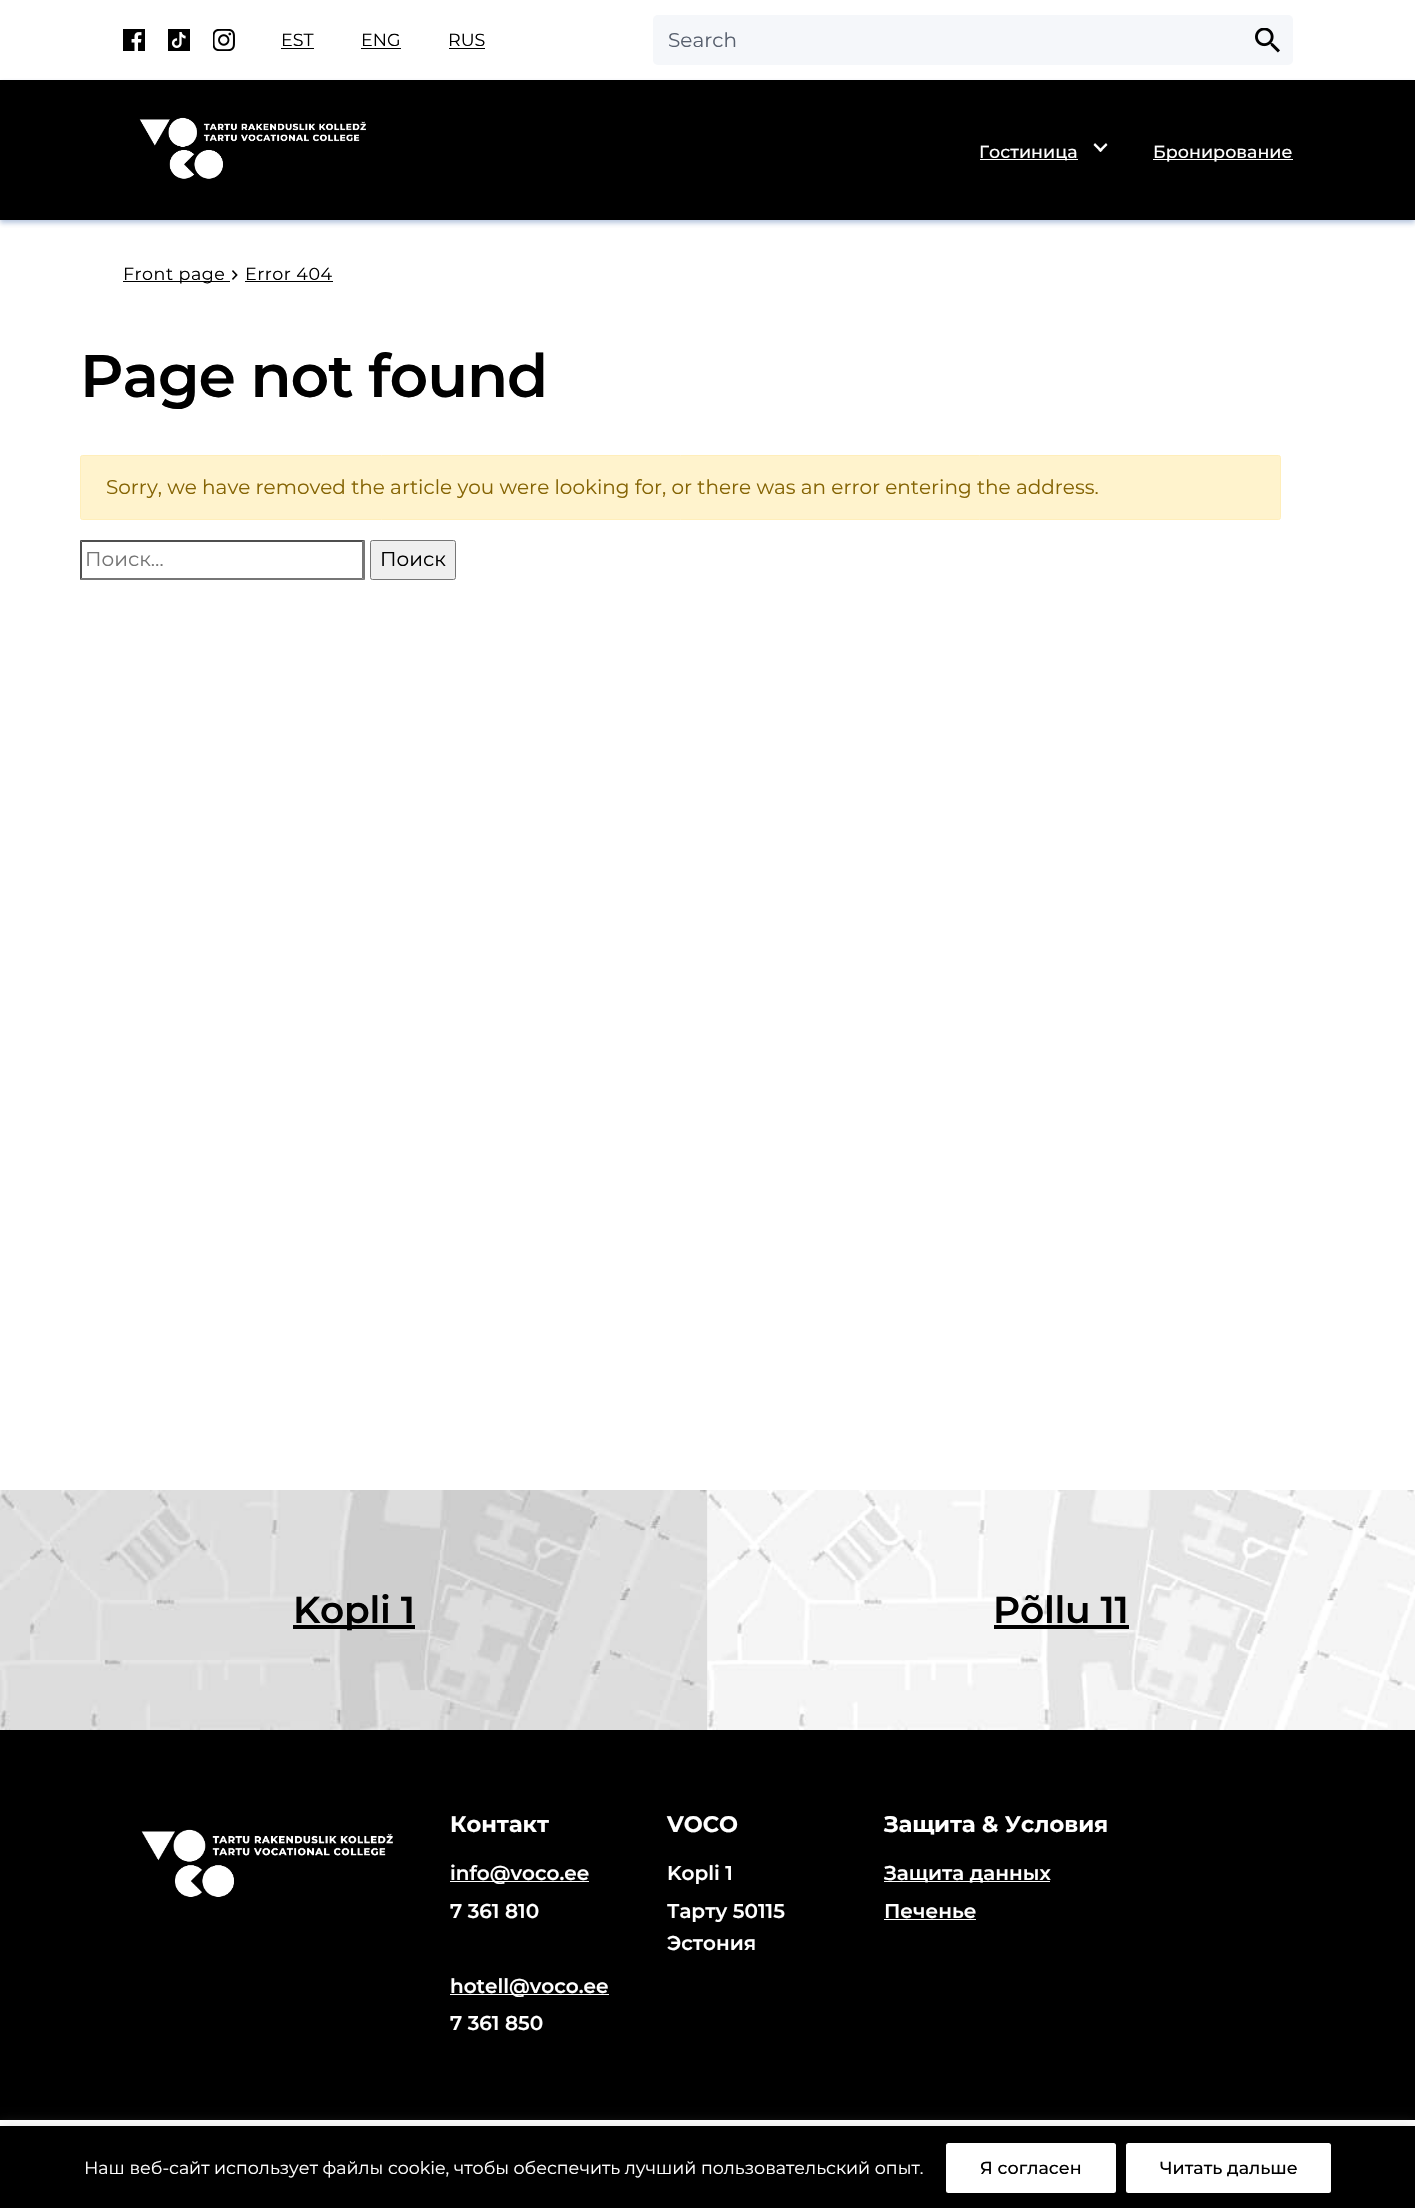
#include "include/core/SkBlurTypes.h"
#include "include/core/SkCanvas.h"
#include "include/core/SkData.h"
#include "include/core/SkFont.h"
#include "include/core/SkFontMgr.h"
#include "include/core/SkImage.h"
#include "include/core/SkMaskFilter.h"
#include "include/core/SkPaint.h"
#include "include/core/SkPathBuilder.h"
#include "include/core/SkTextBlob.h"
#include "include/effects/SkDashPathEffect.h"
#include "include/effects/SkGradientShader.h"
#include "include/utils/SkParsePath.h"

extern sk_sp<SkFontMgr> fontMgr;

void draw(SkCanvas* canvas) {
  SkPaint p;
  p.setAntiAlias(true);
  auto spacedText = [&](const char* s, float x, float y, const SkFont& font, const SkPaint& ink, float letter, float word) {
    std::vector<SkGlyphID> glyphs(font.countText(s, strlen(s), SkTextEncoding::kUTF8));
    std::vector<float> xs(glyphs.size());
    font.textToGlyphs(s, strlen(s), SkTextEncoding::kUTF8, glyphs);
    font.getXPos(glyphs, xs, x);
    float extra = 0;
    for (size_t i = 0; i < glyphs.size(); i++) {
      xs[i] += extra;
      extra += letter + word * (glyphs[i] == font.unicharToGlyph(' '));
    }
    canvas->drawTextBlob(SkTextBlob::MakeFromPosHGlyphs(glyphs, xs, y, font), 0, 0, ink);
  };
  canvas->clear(SK_ColorWHITE);
  canvas->drawImageRect(SkImages::DeferredFromEncodedData(SkData::MakeFromFileName("images/1.png")), SkRect::MakeLTRB(123, 29, 145, 51), SkSamplingOptions());
  canvas->drawImageRect(SkImages::DeferredFromEncodedData(SkData::MakeFromFileName("images/2.png")), SkRect::MakeLTRB(168, 29, 190, 51), SkSamplingOptions());
  canvas->drawImageRect(SkImages::DeferredFromEncodedData(SkData::MakeFromFileName("images/3.png")), SkRect::MakeLTRB(213, 29, 235, 51), SkSamplingOptions());
  p.setColor(SK_ColorBLACK);
  canvas->drawRect(SkRect::MakeLTRB(281, 48, 314, 49), p);
  canvas->drawRect(SkRect::MakeLTRB(361, 48, 401, 49), p);
  canvas->drawRect(SkRect::MakeLTRB(449, 48, 485, 49), p);
  p.setColor(SkColorSetRGB(245, 247, 250));
  canvas->drawRoundRect(SkRect::MakeLTRB(653, 15, 1293, 65), 5, 5, p);
  canvas->drawImageRect(SkImages::DeferredFromEncodedData(SkData::MakeFromFileName("images/4.png")), SkRect::MakeLTRB(1255, 28, 1280, 53), SkSamplingOptions());
  p.setColor(SkColorSetARGB(77, 17, 67, 145));
  p.setMaskFilter(SkMaskFilter::MakeBlur(kNormal_SkBlurStyle, 2.5f));
  canvas->drawRect(SkRect::MakeLTRB(0, 83, 1415, 223), p);
  p.setMaskFilter(nullptr);
  p.setColor(SK_ColorBLACK);
  canvas->drawRect(SkRect::MakeLTRB(0, 80, 1415, 220), p);
  canvas->drawImageRect(SkImages::DeferredFromEncodedData(SkData::MakeFromFileName("images/5.png")), SkRect::MakeLTRB(139, 117, 366, 179), SkSamplingOptions());
  p.setColor(SK_ColorWHITE);
  canvas->drawRect(SkRect::MakeLTRB(980, 159, 1078, 160), p);
  canvas->drawPath(SkPathBuilder().moveTo(1107.5f, 145).lineTo(1100.5f, 152).lineTo(1098.5f, 150.5f).lineTo(1106, 143).close().detach(), p);
  canvas->drawPath(SkPathBuilder().moveTo(1102.5f, 150.5f).lineTo(1100.5f, 152).lineTo(1093.5f, 145).lineTo(1095, 143).close().detach(), p);
  canvas->drawRect(SkRect::MakeLTRB(1153, 159, 1293, 160), p);
  p.setColor(SK_ColorBLACK);
  canvas->drawRect(SkRect::MakeLTRB(123, 281, 230, 282), p);
  canvas->drawImageRect(SkImages::DeferredFromEncodedData(SkData::MakeFromFileName("images/6.png")), SkRect::MakeLTRB(232, 270, 238, 280), SkSamplingOptions());
  canvas->drawRect(SkRect::MakeLTRB(245, 281, 333, 282), p);
  p.setColor(SkColorSetRGB(255, 243, 205));
  canvas->drawRoundRect(SkRect::MakeLTRB(80.5f, 455.5f, 1280.5f, 519.5f), 2, 2, p);
  p.setStyle(SkPaint::kStroke_Style);
  p.setStrokeWidth(1);
  p.setColor(SkColorSetRGB(255, 238, 186));
  canvas->drawRoundRect(SkRect::MakeLTRB(80.5f, 455.5f, 1280.5f, 519.5f), 2, 2, p);
  p.setStyle(SkPaint::kFill_Style);
  p.setColor(SkColorSetRGB(79, 79, 79));
  canvas->drawPath(SkPathBuilder().moveTo(80, 540).lineTo(365, 540).lineTo(362, 542).lineTo(82, 542).close().detach(), p);
  p.setColor(SkColorSetRGB(118, 118, 118));
  canvas->drawPath(SkPathBuilder().moveTo(365, 540).lineTo(365, 580).lineTo(362, 578).lineTo(362, 542).close().detach(), p);
  canvas->drawPath(SkPathBuilder().moveTo(365, 580).lineTo(80, 580).lineTo(82, 578).lineTo(362, 578).close().detach(), p);
  p.setColor(SkColorSetRGB(79, 79, 79));
  canvas->drawPath(SkPathBuilder().moveTo(80, 580).lineTo(80, 540).lineTo(82, 542).lineTo(82, 578).close().detach(), p);
  p.setColor(SkColorSetRGB(239, 239, 239));
  canvas->drawRoundRect(SkRect::MakeLTRB(370.5f, 540.5f, 455.5f, 579.5f), 2, 2, p);
  p.setStyle(SkPaint::kStroke_Style);
  p.setColor(SkColorSetRGB(118, 118, 118));
  canvas->drawRoundRect(SkRect::MakeLTRB(370.5f, 540.5f, 455.5f, 579.5f), 2, 2, p);
  canvas->drawImageRect(SkImages::DeferredFromEncodedData(SkData::MakeFromFileName("images/7.png")), SkRect::MakeLTRB(0, 1490, 708, 1730), SkSamplingOptions());
  p.setStyle(SkPaint::kFill_Style);
  p.setColor(SK_ColorBLACK);
  canvas->drawRect(SkRect::MakeLTRB(293, 1625, 415, 1629), p);
  canvas->drawImageRect(SkImages::DeferredFromEncodedData(SkData::MakeFromFileName("images/8.png")), SkRect::MakeLTRB(707, 1490, 1415, 1730), SkSamplingOptions());
  canvas->drawRect(SkRect::MakeLTRB(994, 1625, 1129, 1629), p);
  canvas->drawRect(SkRect::MakeLTRB(0, 1730, 1415, 2120), p);
  canvas->drawImageRect(SkImages::DeferredFromEncodedData(SkData::MakeFromFileName("images/9.png")), SkRect::MakeLTRB(141, 1829, 393, 1897), SkSamplingOptions());
  p.setColor(SK_ColorWHITE);
  canvas->drawRect(SkRect::MakeLTRB(450, 1881, 589, 1882), p);
  canvas->drawRect(SkRect::MakeLTRB(450, 1994, 609, 1995), p);
  canvas->drawRect(SkRect::MakeLTRB(884, 1881, 1050, 1882), p);
  canvas->drawRect(SkRect::MakeLTRB(884, 1919, 976, 1920), p);
  p.setColor(SkColorSetARGB(77, 172, 171, 171));
  p.setMaskFilter(SkMaskFilter::MakeBlur(kNormal_SkBlurStyle, 6));
  canvas->drawRect(SkRect::MakeLTRB(0, 2125, 1415, 2208), p);
  p.setMaskFilter(nullptr);
  p.setColor(SK_ColorBLACK);
  canvas->drawRect(SkRect::MakeLTRB(0, 2126, 1415, 2208), p);
  p.setColor(SK_ColorWHITE);
  canvas->drawRoundRect(SkRect::MakeLTRB(946, 2143, 1116, 2193), 2.5f, 2.5f, p);
  canvas->drawRoundRect(SkRect::MakeLTRB(1126, 2143, 1331, 2193), 2.5f, 2.5f, p);
  SkFont font1(fontMgr->matchFamilyStyle("Montserrat", SkFontStyle::Normal()), 17.5f);
  font1.setSubpixel(true);
  p.setColor(SK_ColorBLACK);
  canvas->drawString("EST", 281, 46, font1, p);
  canvas->drawString("ENG", 361, 46, font1, p);
  canvas->drawString("RUS", 448, 46, font1, p);
  SkFont font2(fontMgr->matchFamilyStyle("Montserrat", SkFontStyle::Normal()), 20);
  font2.setSubpixel(true);
  p.setColor(SkColorSetRGB(88, 96, 110));
  canvas->drawString("Search", 668, 47, font2, p);
  SkFont font3(fontMgr->matchFamilyStyle("Montserrat", SkFontStyle(500, SkFontStyle::kNormal_Width, SkFontStyle::kUpright_Slant)), 17.5f);
  font3.setSubpixel(true);
  p.setColor(SK_ColorWHITE);
  canvas->drawString("Гостиница", 979, 158, font3, p);
  canvas->drawString("Бронирование", 1153, 158, font3, p);
  p.setColor(SK_ColorBLACK);
  spacedText("Front page", 123, 280, font1, p, 0.5f, 0);
  spacedText("Error 404", 245, 280, font1, p, 0.5f, 0);
  SkFont font4(fontMgr->matchFamilyStyle("Montserrat", SkFontStyle(600, SkFontStyle::kNormal_Width, SkFontStyle::kUpright_Slant)), 60);
  font4.setSubpixel(true);
  spacedText("Page not found", 80, 397, font4, p, -1, 0);
  p.setColor(SkColorSetRGB(133, 100, 4));
  canvas->drawString("Sorry, we have removed the article you were looking for, or there was an error entering the address.", 106, 494, font2, p);
  p.setColor(SkColorSetRGB(117, 117, 117));
  canvas->drawString("Поиск…", 85, 566, font2, p);
  p.setColor(SK_ColorBLACK);
  canvas->drawString("Поиск", 380, 566, font2, p);
  SkFont font5(fontMgr->matchFamilyStyle("Montserrat", SkFontStyle(600, SkFontStyle::kNormal_Width, SkFontStyle::kUpright_Slant)), 37.5f);
  font5.setSubpixel(true);
  spacedText("Kopli 1", 293, 1623, font5, p, -0.25f, 0);
  spacedText("Põllu 11", 993, 1623, font5, p, -0.25f, 0);
  SkFont font6(fontMgr->matchFamilyStyle("Montserrat", SkFontStyle::Bold()), 22.5f);
  font6.setSubpixel(true);
  p.setColor(SK_ColorWHITE);
  canvas->drawString("Контакт", 450, 1832, font6, p);
  SkFont font7(fontMgr->matchFamilyStyle("Montserrat", SkFontStyle(600, SkFontStyle::kNormal_Width, SkFontStyle::kUpright_Slant)), 20);
  font7.setSubpixel(true);
  canvas->drawString("info@voco.ee", 450, 1880, font7, p);
  canvas->drawString("7 361 810", 450, 1918, font7, p);
  canvas->drawString("hotell@voco.ee", 450, 1993, font7, p);
  canvas->drawString("7 361 850", 450, 2030, font7, p);
  canvas->drawString("VOCO", 667, 1832, font6, p);
  canvas->drawString("Kopli 1", 667, 1880, font7, p);
  canvas->drawString("Тарту 50115", 667, 1918, font7, p);
  canvas->drawString("Эстония", 667, 1950, font7, p);
  canvas->drawString("Защита & Условия", 884, 1832, font6, p);
  canvas->drawString("Защита данных", 884, 1880, font7, p);
  canvas->drawString("Печенье", 884, 1918, font7, p);
  canvas->drawString("Наш веб-сайт использует файлы cookie, чтобы обеспечить лучший пользовательский опыт.", 84, 2174, font1, p);
  p.setColor(SK_ColorBLACK);
  canvas->drawString("Я согласен", 980, 2174, font3, p);
  canvas->drawString("Читать дальше", 1160, 2174, font3, p);
}
